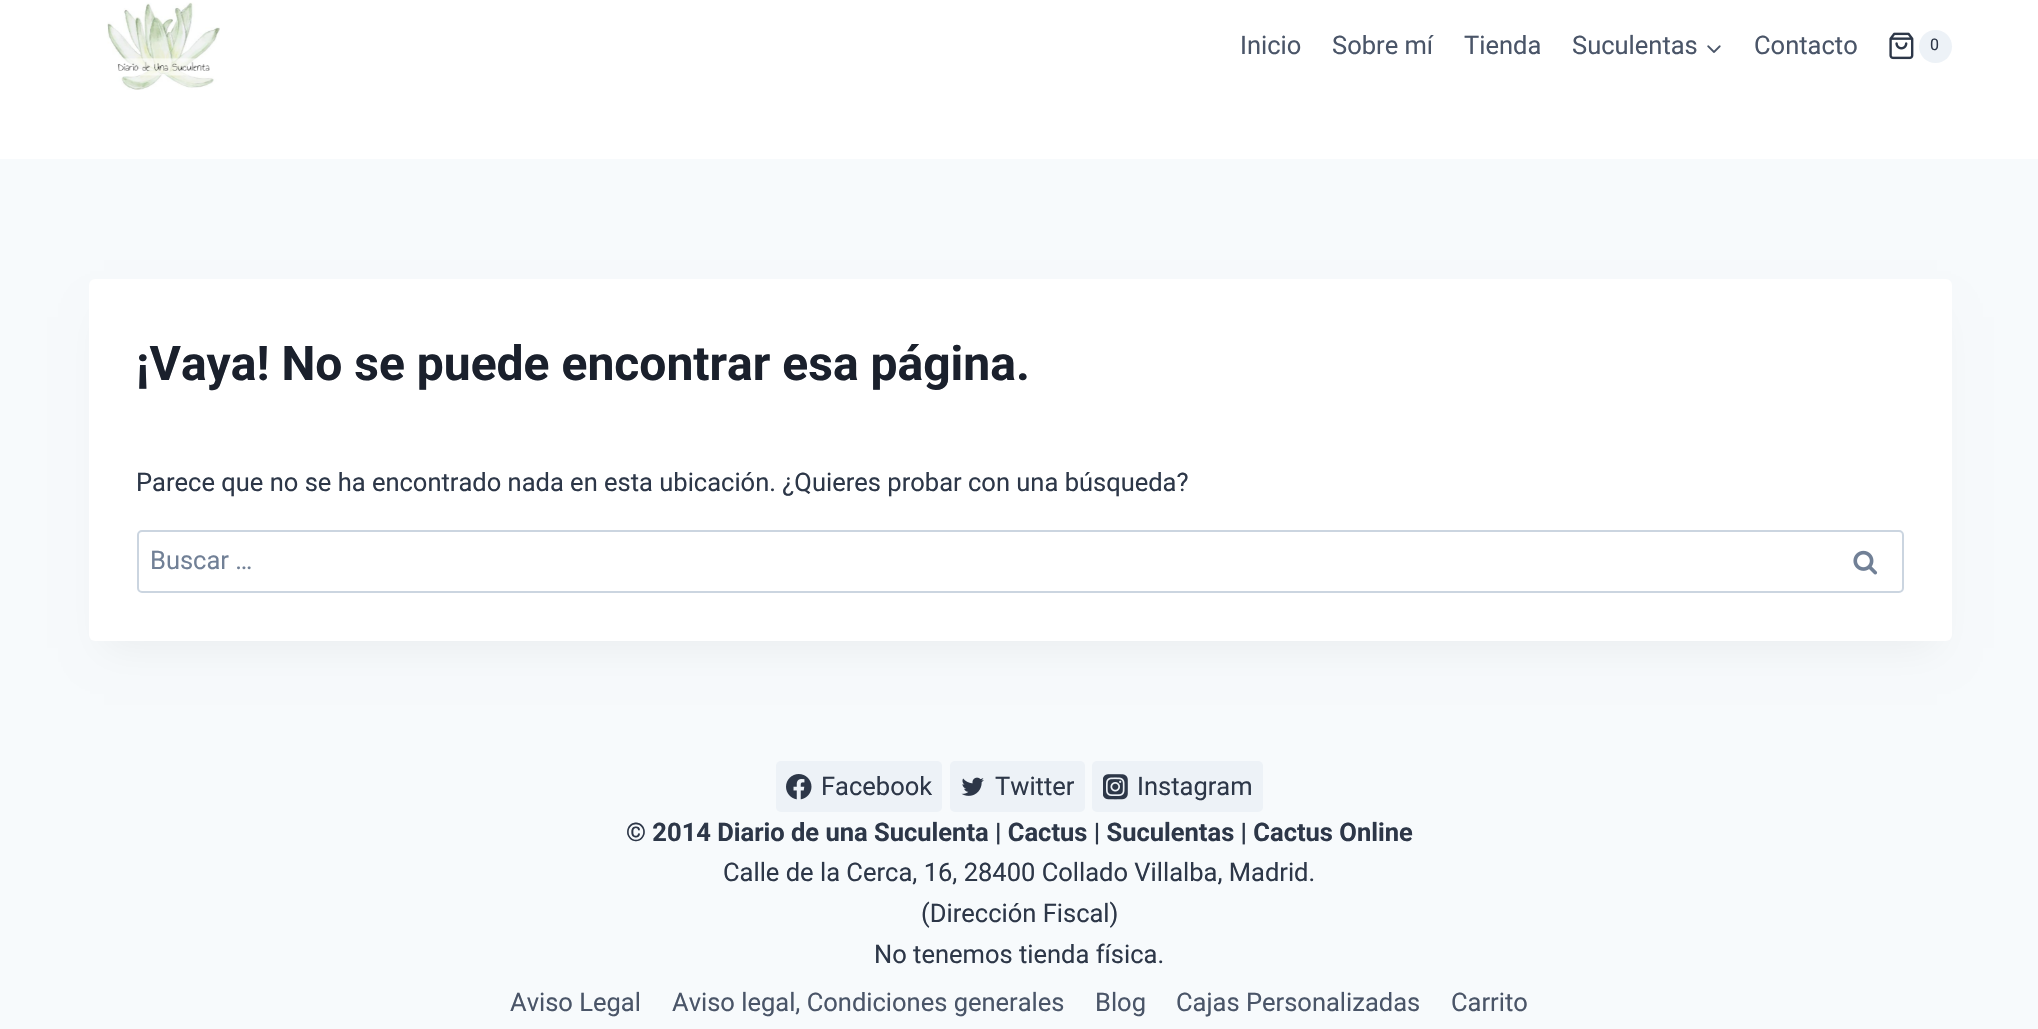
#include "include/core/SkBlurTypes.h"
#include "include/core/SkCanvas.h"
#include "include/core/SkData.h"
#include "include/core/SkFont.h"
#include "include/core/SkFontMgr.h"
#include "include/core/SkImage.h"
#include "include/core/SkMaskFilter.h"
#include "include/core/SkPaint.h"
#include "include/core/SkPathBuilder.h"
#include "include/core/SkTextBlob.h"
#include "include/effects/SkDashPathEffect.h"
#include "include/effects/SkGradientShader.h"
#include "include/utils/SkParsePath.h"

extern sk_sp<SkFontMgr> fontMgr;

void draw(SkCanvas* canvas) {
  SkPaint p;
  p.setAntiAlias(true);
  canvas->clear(SkColorSetRGB(247, 250, 252));
  p.setColor(SK_ColorWHITE);
  canvas->drawRect(SkRect::MakeLTRB(0, 0, 2038, 159), p);
  canvas->drawImageRect(SkImages::DeferredFromEncodedData(SkData::MakeFromFileName("images/1.png")), SkRect::MakeLTRB(107, 2, 220, 90), SkSamplingOptions());
  canvas->drawImageRect(SkImages::DeferredFromEncodedData(SkData::MakeFromFileName("images/2.png")), SkRect::MakeLTRB(1707, 45, 1721, 53), SkSamplingOptions());
  canvas->drawImageRect(SkImages::DeferredFromEncodedData(SkData::MakeFromFileName("images/3.png")), SkRect::MakeLTRB(1889, 32, 1914, 60), SkSamplingOptions());
  p.setColor(SkColorSetRGB(237, 242, 247));
  canvas->drawCircle(1935.5f, 46.5f, 16.5f, p);
  p.setColor(SkColorSetARGB(13, 0, 0, 0));
  p.setMaskFilter(SkMaskFilter::MakeBlur(kNormal_SkBlurStyle, 19));
  canvas->drawRect(SkRect::MakeLTRB(104, 317, 1937, 648), p);
  p.setMaskFilter(nullptr);
  p.setColor(SK_ColorWHITE);
  canvas->drawRoundRect(SkRect::MakeLTRB(89, 279, 1952, 641), 6, 6, p);
  p.setStyle(SkPaint::kStroke_Style);
  p.setStrokeWidth(2);
  p.setColor(SkColorSetRGB(203, 213, 224));
  canvas->drawRoundRect(SkRect::MakeLTRB(138, 531, 1903, 592), 4, 4, p);
  canvas->drawImageRect(SkImages::DeferredFromEncodedData(SkData::MakeFromFileName("images/4.png")), SkRect::MakeLTRB(1853, 550, 1878, 575), SkSamplingOptions());
  p.setStyle(SkPaint::kFill_Style);
  p.setColor(SkColorSetRGB(237, 242, 247));
  canvas->drawRoundRect(SkRect::MakeLTRB(776, 761, 942, 812), 5, 5, p);
  canvas->drawImageRect(SkImages::DeferredFromEncodedData(SkData::MakeFromFileName("images/5.png")), SkRect::MakeLTRB(786, 774, 812, 800), SkSamplingOptions());
  canvas->drawRoundRect(SkRect::MakeLTRB(950, 761, 1085, 812), 5, 5, p);
  canvas->drawImageRect(SkImages::DeferredFromEncodedData(SkData::MakeFromFileName("images/6.png")), SkRect::MakeLTRB(961, 777, 984, 796), SkSamplingOptions());
  canvas->drawRoundRect(SkRect::MakeLTRB(1092, 761, 1263, 812), 5, 5, p);
  canvas->drawImageRect(SkImages::DeferredFromEncodedData(SkData::MakeFromFileName("images/7.png")), SkRect::MakeLTRB(1103, 774, 1128, 800), SkSamplingOptions());
  SkFont font1(fontMgr->matchFamilyStyle("Roboto", SkFontStyle::Normal()), 25.5f);
  font1.setSubpixel(true);
  p.setColor(SkColorSetRGB(74, 85, 104));
  canvas->drawString("Inicio", 1240, 54, font1, p);
  canvas->drawString("Sobre mí", 1332, 54, font1, p);
  canvas->drawString("Tienda", 1464, 54, font1, p);
  canvas->drawString("Suculentas", 1572, 54, font1, p);
  canvas->drawString("Contacto", 1754, 54, font1, p);
  SkFont font2(fontMgr->matchFamilyStyle("Roboto", SkFontStyle::Normal()), 16);
  font2.setSubpixel(true);
  p.setColor(SkColorSetRGB(45, 55, 72));
  canvas->drawString("0", 1930, 50, font2, p);
  SkFont font3(fontMgr->matchFamilyStyle("Roboto", SkFontStyle::Bold()), 48);
  font3.setSubpixel(true);
  p.setColor(SkColorSetRGB(26, 32, 44));
  canvas->drawString("¡Vaya! No se puede encontrar esa página.", 136, 380, font3, p);
  p.setColor(SkColorSetRGB(45, 55, 72));
  canvas->drawString("Parece que no se ha encontrado nada en esta ubicación. ¿Quieres probar con una búsqueda?", 136, 491, font1, p);
  p.setColor(SkColorSetRGB(113, 128, 150));
  canvas->drawString("Buscar …", 150, 569, font1, p);
  p.setColor(SkColorSetRGB(45, 55, 72));
  canvas->drawString("Facebook", 821, 795, font1, p);
  canvas->drawString("Twitter", 995, 795, font1, p);
  canvas->drawString("Instagram", 1137, 795, font1, p);
  SkFont font4(fontMgr->matchFamilyStyle("Roboto", SkFontStyle::Bold()), 25.5f);
  font4.setSubpixel(true);
  canvas->drawString("© 2014 Diario de una Suculenta | Cactus | Suculentas | Cactus Online", 626, 841, font4, p);
  canvas->drawString("Calle de la Cerca, 16, 28400 Collado Villalba, Madrid.", 723, 881, font1, p);
  canvas->drawString("(Dirección Fiscal)", 921, 922, font1, p);
  canvas->drawString("No tenemos tienda física.", 874, 963, font1, p);
  p.setColor(SkColorSetRGB(74, 85, 104));
  canvas->drawString("Aviso Legal", 510, 1011, font1, p);
  canvas->drawString("Aviso legal, Condiciones generales", 672, 1011, font1, p);
  canvas->drawString("Blog", 1095, 1011, font1, p);
  canvas->drawString("Cajas Personalizadas", 1176, 1011, font1, p);
  canvas->drawString("Carrito", 1451, 1011, font1, p);
}
